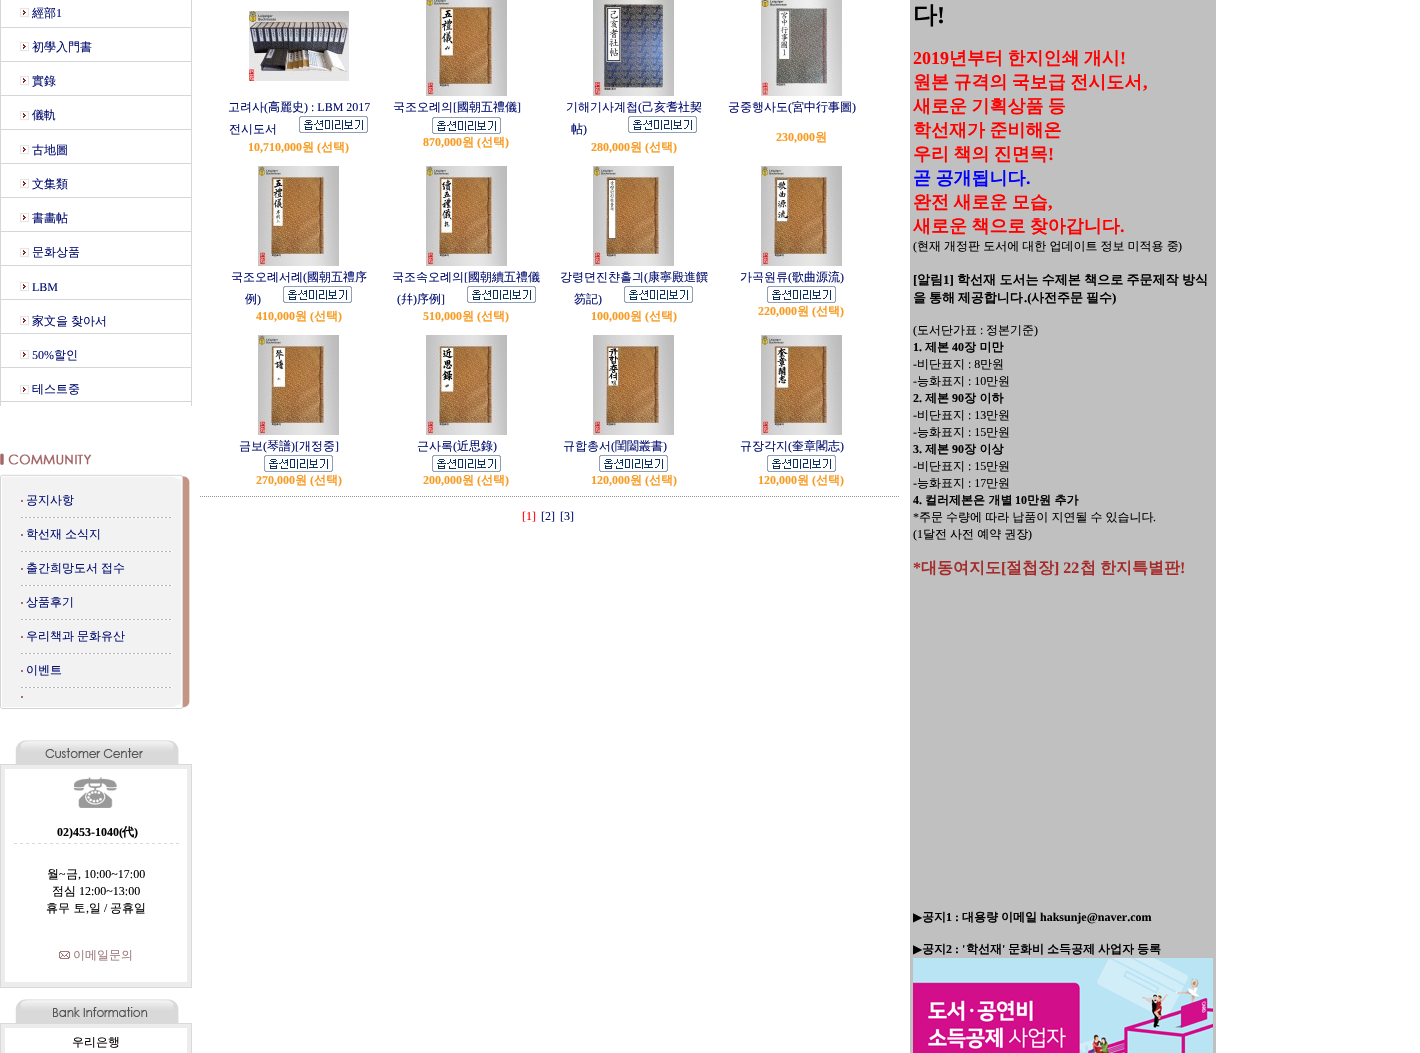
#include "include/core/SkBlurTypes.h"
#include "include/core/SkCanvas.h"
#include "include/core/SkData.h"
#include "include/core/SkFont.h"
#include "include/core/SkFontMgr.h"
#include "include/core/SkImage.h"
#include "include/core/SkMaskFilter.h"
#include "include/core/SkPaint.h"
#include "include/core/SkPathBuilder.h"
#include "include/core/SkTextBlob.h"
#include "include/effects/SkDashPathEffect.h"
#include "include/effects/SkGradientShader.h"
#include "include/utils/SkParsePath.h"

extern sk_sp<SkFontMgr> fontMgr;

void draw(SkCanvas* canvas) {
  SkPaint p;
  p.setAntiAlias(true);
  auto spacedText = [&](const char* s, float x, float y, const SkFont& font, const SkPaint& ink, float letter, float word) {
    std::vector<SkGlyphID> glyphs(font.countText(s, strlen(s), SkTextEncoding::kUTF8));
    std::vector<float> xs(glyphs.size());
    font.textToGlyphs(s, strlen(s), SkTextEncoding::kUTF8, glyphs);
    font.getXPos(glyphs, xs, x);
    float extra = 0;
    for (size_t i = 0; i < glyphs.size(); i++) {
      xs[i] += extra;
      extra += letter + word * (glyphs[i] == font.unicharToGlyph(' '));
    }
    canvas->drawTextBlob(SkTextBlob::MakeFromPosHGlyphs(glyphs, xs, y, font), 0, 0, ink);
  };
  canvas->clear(SK_ColorWHITE);
  canvas->drawImageRect(SkImages::DeferredFromEncodedData(SkData::MakeFromFileName("images/1.png")), SkRect::MakeLTRB(0, 0, 192, 406), SkSamplingOptions());
  canvas->drawImageRect(SkImages::DeferredFromEncodedData(SkData::MakeFromFileName("images/2.png")), SkRect::MakeLTRB(20, 8, 29, 18), SkSamplingOptions());
  canvas->drawImageRect(SkImages::DeferredFromEncodedData(SkData::MakeFromFileName("images/2.png")), SkRect::MakeLTRB(20, 42, 29, 52), SkSamplingOptions());
  canvas->drawImageRect(SkImages::DeferredFromEncodedData(SkData::MakeFromFileName("images/2.png")), SkRect::MakeLTRB(20, 76, 29, 86), SkSamplingOptions());
  canvas->drawImageRect(SkImages::DeferredFromEncodedData(SkData::MakeFromFileName("images/2.png")), SkRect::MakeLTRB(20, 111, 29, 121), SkSamplingOptions());
  canvas->drawImageRect(SkImages::DeferredFromEncodedData(SkData::MakeFromFileName("images/2.png")), SkRect::MakeLTRB(20, 145, 29, 155), SkSamplingOptions());
  canvas->drawImageRect(SkImages::DeferredFromEncodedData(SkData::MakeFromFileName("images/2.png")), SkRect::MakeLTRB(20, 179, 29, 189), SkSamplingOptions());
  canvas->drawImageRect(SkImages::DeferredFromEncodedData(SkData::MakeFromFileName("images/2.png")), SkRect::MakeLTRB(20, 213, 29, 223), SkSamplingOptions());
  canvas->drawImageRect(SkImages::DeferredFromEncodedData(SkData::MakeFromFileName("images/2.png")), SkRect::MakeLTRB(20, 248, 29, 258), SkSamplingOptions());
  canvas->drawImageRect(SkImages::DeferredFromEncodedData(SkData::MakeFromFileName("images/2.png")), SkRect::MakeLTRB(20, 282, 29, 292), SkSamplingOptions());
  canvas->drawImageRect(SkImages::DeferredFromEncodedData(SkData::MakeFromFileName("images/2.png")), SkRect::MakeLTRB(20, 316, 29, 326), SkSamplingOptions());
  canvas->drawImageRect(SkImages::DeferredFromEncodedData(SkData::MakeFromFileName("images/2.png")), SkRect::MakeLTRB(20, 350, 29, 360), SkSamplingOptions());
  canvas->drawImageRect(SkImages::DeferredFromEncodedData(SkData::MakeFromFileName("images/2.png")), SkRect::MakeLTRB(20, 385, 29, 395), SkSamplingOptions());
  canvas->drawImageRect(SkImages::DeferredFromEncodedData(SkData::MakeFromFileName("images/3.png")), SkRect::MakeLTRB(0, 453, 92, 465), SkSamplingOptions());
  canvas->drawImageRect(SkImages::DeferredFromEncodedData(SkData::MakeFromFileName("images/4.png")), SkRect::MakeLTRB(0, 474, 190, 484), SkSamplingOptions());
  canvas->drawImageRect(SkImages::DeferredFromEncodedData(SkData::MakeFromFileName("images/5.png")), SkRect::MakeLTRB(0, 484, 190, 698), SkSamplingOptions());
  p.setColor(SkColorSetRGB(175, 105, 114));
  canvas->drawRect(SkRect::MakeLTRB(21, 500, 23, 502), p);
  canvas->drawImageRect(SkImages::DeferredFromEncodedData(SkData::MakeFromFileName("images/6.png")), SkRect::MakeLTRB(21, 517, 173, 518), SkSamplingOptions());
  canvas->drawRect(SkRect::MakeLTRB(21, 534, 23, 536), p);
  canvas->drawImageRect(SkImages::DeferredFromEncodedData(SkData::MakeFromFileName("images/6.png")), SkRect::MakeLTRB(21, 551, 173, 552), SkSamplingOptions());
  canvas->drawRect(SkRect::MakeLTRB(21, 568, 23, 570), p);
  canvas->drawImageRect(SkImages::DeferredFromEncodedData(SkData::MakeFromFileName("images/6.png")), SkRect::MakeLTRB(21, 585, 173, 586), SkSamplingOptions());
  canvas->drawRect(SkRect::MakeLTRB(21, 602, 23, 604), p);
  canvas->drawImageRect(SkImages::DeferredFromEncodedData(SkData::MakeFromFileName("images/6.png")), SkRect::MakeLTRB(21, 619, 173, 620), SkSamplingOptions());
  canvas->drawRect(SkRect::MakeLTRB(21, 636, 23, 638), p);
  canvas->drawImageRect(SkImages::DeferredFromEncodedData(SkData::MakeFromFileName("images/6.png")), SkRect::MakeLTRB(21, 653, 173, 654), SkSamplingOptions());
  canvas->drawRect(SkRect::MakeLTRB(21, 670, 23, 672), p);
  canvas->drawImageRect(SkImages::DeferredFromEncodedData(SkData::MakeFromFileName("images/6.png")), SkRect::MakeLTRB(21, 687, 173, 688), SkSamplingOptions());
  canvas->drawRect(SkRect::MakeLTRB(21, 696, 23, 698), p);
  canvas->drawImageRect(SkImages::DeferredFromEncodedData(SkData::MakeFromFileName("images/7.png")), SkRect::MakeLTRB(0, 698, 190, 709), SkSamplingOptions());
  canvas->drawImageRect(SkImages::DeferredFromEncodedData(SkData::MakeFromFileName("images/8.png")), SkRect::MakeLTRB(0, 740, 192, 808), SkSamplingOptions());
  canvas->drawImageRect(SkImages::DeferredFromEncodedData(SkData::MakeFromFileName("images/9.png")), SkRect::MakeLTRB(0, 808, 192, 980), SkSamplingOptions());
  canvas->drawImageRect(SkImages::DeferredFromEncodedData(SkData::MakeFromFileName("images/10.png")), SkRect::MakeLTRB(14, 843, 179, 844), SkSamplingOptions());
  canvas->drawImageRect(SkImages::DeferredFromEncodedData(SkData::MakeFromFileName("images/11.png")), SkRect::MakeLTRB(59, 951, 70, 959), SkSamplingOptions());
  canvas->drawImageRect(SkImages::DeferredFromEncodedData(SkData::MakeFromFileName("images/12.png")), SkRect::MakeLTRB(0, 980, 192, 988), SkSamplingOptions());
  canvas->drawImageRect(SkImages::DeferredFromEncodedData(SkData::MakeFromFileName("images/13.png")), SkRect::MakeLTRB(15, 999, 179, 1023), SkSamplingOptions());
  p.setColor(SkColorSetRGB(218, 218, 218));
  canvas->drawRect(SkRect::MakeLTRB(0, 1023, 192, 1053), p);
  p.setColor(SkColorSetRGB(236, 236, 236));
  canvas->drawRect(SkRect::MakeLTRB(1, 1024, 191, 1053), p);
  p.setColor(SK_ColorWHITE);
  canvas->drawRect(SkRect::MakeLTRB(5, 1028, 187, 1053), p);
  canvas->drawImageRect(SkImages::DeferredFromEncodedData(SkData::MakeFromFileName("images/14.png")), SkRect::MakeLTRB(249, 11, 349, 81), SkSamplingOptions());
  canvas->drawImageRect(SkImages::DeferredFromEncodedData(SkData::MakeFromFileName("images/15.png")), SkRect::MakeLTRB(299, 116, 368, 133), SkSamplingOptions());
  canvas->drawImageRect(SkImages::DeferredFromEncodedData(SkData::MakeFromFileName("images/16.png")), SkRect::MakeLTRB(426, 0, 507, 96), SkSamplingOptions());
  canvas->drawImageRect(SkImages::DeferredFromEncodedData(SkData::MakeFromFileName("images/15.png")), SkRect::MakeLTRB(432, 117, 501, 134), SkSamplingOptions());
  canvas->drawImageRect(SkImages::DeferredFromEncodedData(SkData::MakeFromFileName("images/17.png")), SkRect::MakeLTRB(593, 0, 674, 96), SkSamplingOptions());
  canvas->drawImageRect(SkImages::DeferredFromEncodedData(SkData::MakeFromFileName("images/15.png")), SkRect::MakeLTRB(628, 116, 697, 133), SkSamplingOptions());
  canvas->drawImageRect(SkImages::DeferredFromEncodedData(SkData::MakeFromFileName("images/18.png")), SkRect::MakeLTRB(761, 0, 842, 96), SkSamplingOptions());
  canvas->drawImageRect(SkImages::DeferredFromEncodedData(SkData::MakeFromFileName("images/19.png")), SkRect::MakeLTRB(258, 166, 339, 266), SkSamplingOptions());
  canvas->drawImageRect(SkImages::DeferredFromEncodedData(SkData::MakeFromFileName("images/15.png")), SkRect::MakeLTRB(283, 286, 352, 303), SkSamplingOptions());
  canvas->drawImageRect(SkImages::DeferredFromEncodedData(SkData::MakeFromFileName("images/20.png")), SkRect::MakeLTRB(426, 166, 507, 266), SkSamplingOptions());
  canvas->drawImageRect(SkImages::DeferredFromEncodedData(SkData::MakeFromFileName("images/15.png")), SkRect::MakeLTRB(467, 286, 536, 303), SkSamplingOptions());
  canvas->drawImageRect(SkImages::DeferredFromEncodedData(SkData::MakeFromFileName("images/21.png")), SkRect::MakeLTRB(593, 166, 674, 266), SkSamplingOptions());
  canvas->drawImageRect(SkImages::DeferredFromEncodedData(SkData::MakeFromFileName("images/15.png")), SkRect::MakeLTRB(624, 286, 693, 303), SkSamplingOptions());
  canvas->drawImageRect(SkImages::DeferredFromEncodedData(SkData::MakeFromFileName("images/22.png")), SkRect::MakeLTRB(761, 166, 842, 266), SkSamplingOptions());
  canvas->drawImageRect(SkImages::DeferredFromEncodedData(SkData::MakeFromFileName("images/15.png")), SkRect::MakeLTRB(767, 286, 836, 303), SkSamplingOptions());
  canvas->drawImageRect(SkImages::DeferredFromEncodedData(SkData::MakeFromFileName("images/23.png")), SkRect::MakeLTRB(258, 335, 339, 435), SkSamplingOptions());
  canvas->drawImageRect(SkImages::DeferredFromEncodedData(SkData::MakeFromFileName("images/15.png")), SkRect::MakeLTRB(264, 455, 333, 472), SkSamplingOptions());
  canvas->drawImageRect(SkImages::DeferredFromEncodedData(SkData::MakeFromFileName("images/24.png")), SkRect::MakeLTRB(426, 335, 507, 435), SkSamplingOptions());
  canvas->drawImageRect(SkImages::DeferredFromEncodedData(SkData::MakeFromFileName("images/15.png")), SkRect::MakeLTRB(432, 455, 501, 472), SkSamplingOptions());
  canvas->drawImageRect(SkImages::DeferredFromEncodedData(SkData::MakeFromFileName("images/25.png")), SkRect::MakeLTRB(593, 335, 674, 435), SkSamplingOptions());
  canvas->drawImageRect(SkImages::DeferredFromEncodedData(SkData::MakeFromFileName("images/15.png")), SkRect::MakeLTRB(599, 455, 668, 472), SkSamplingOptions());
  canvas->drawImageRect(SkImages::DeferredFromEncodedData(SkData::MakeFromFileName("images/26.png")), SkRect::MakeLTRB(761, 335, 842, 435), SkSamplingOptions());
  canvas->drawImageRect(SkImages::DeferredFromEncodedData(SkData::MakeFromFileName("images/15.png")), SkRect::MakeLTRB(767, 455, 836, 472), SkSamplingOptions());
  canvas->drawImageRect(SkImages::DeferredFromEncodedData(SkData::MakeFromFileName("images/27.png")), SkRect::MakeLTRB(200, 496, 899, 497), SkSamplingOptions());
  p.setColor(SkColorSetRGB(192, 192, 192));
  canvas->drawRect(SkRect::MakeLTRB(910, 0, 1216, 1053), p);
  canvas->drawImageRect(SkImages::DeferredFromEncodedData(SkData::MakeFromFileName("images/28.png")), SkRect::MakeLTRB(913, 958, 1213, 1053), SkSamplingOptions());
  SkFont font1(fontMgr->matchFamilyStyle("WenQuanYi Zen Hei", SkFontStyle(500, SkFontStyle::kNormal_Width, SkFontStyle::kUpright_Slant)), 12);
  font1.setSubpixel(true);
  p.setColor(SkColorSetRGB(4, 15, 111));
  canvas->drawString("經部", 32, 17, font1, p);
  SkFont font2(fontMgr->matchFamilyStyle("Liberation Serif", SkFontStyle::Normal()), 12);
  font2.setSubpixel(true);
  canvas->drawString("1", 56, 17, font2, p);
  canvas->drawString("初學入門書", 32, 51, font1, p);
  canvas->drawString("實錄", 32, 85, font1, p);
  canvas->drawString("儀軌", 32, 119, font1, p);
  canvas->drawString("古地圖", 32, 154, font1, p);
  canvas->drawString("文集類", 32, 188, font1, p);
  canvas->drawString("書畵帖", 32, 222, font1, p);
  canvas->drawString("문화상품", 32, 256, font1, p);
  canvas->drawString("LBM", 32, 291, font2, p);
  spacedText("家文을 찾아서", 32, 325, font1, p, 0, -0.5f);
  canvas->drawString("50%", 32, 359, font2, p);
  canvas->drawString("할인", 54, 359, font1, p);
  canvas->drawString("테스트중", 32, 393, font1, p);
  canvas->drawString("공지사항", 26, 504, font1, p);
  spacedText("학선재 소식지", 26, 538, font1, p, 0, -0.5f);
  spacedText("출간희망도서 접수", 26, 572, font1, p, 0, -0.5f);
  canvas->drawString("상품후기", 26, 606, font1, p);
  spacedText("우리책과 문화유산", 26, 640, font1, p, 0, -0.5f);
  canvas->drawString("이벤트", 26, 674, font1, p);
  SkFont font3(fontMgr->matchFamilyStyle("Liberation Serif", SkFontStyle::Bold()), 12);
  font3.setSubpixel(true);
  p.setColor(SK_ColorBLACK);
  canvas->drawString("02)453-1040(", 57, 836, font3, p);
  SkFont font4(fontMgr->matchFamilyStyle("WenQuanYi Zen Hei", SkFontStyle::Bold()), 12);
  font4.setSubpixel(true);
  canvas->drawString("代", 122, 836, font4, p);
  canvas->drawString(")", 134, 836, font3, p);
  canvas->drawString("월", 47, 878, font1, p);
  canvas->drawString("~", 59, 878, font2, p);
  canvas->drawString("금", 66, 878, font1, p);
  canvas->drawString(", 10:00~17:00", 78, 878, font2, p);
  canvas->drawString("점심", 52, 895, font1, p);
  canvas->drawString("12:00~13:00", 79, 895, font2, p);
  canvas->drawString("휴무 토", 46, 912, font1, p);
  canvas->drawString(",", 86, 912, font2, p);
  canvas->drawString("일", 89, 912, font1, p);
  canvas->drawString("/", 104, 912, font2, p);
  canvas->drawString("공휴일", 110, 912, font1, p);
  p.setColor(SkColorSetRGB(157, 123, 124));
  canvas->drawString("이메일문의", 73, 959, font1, p);
  p.setColor(SK_ColorBLACK);
  canvas->drawString("우리은행", 72, 1046, font1, p);
  p.setColor(SkColorSetRGB(4, 15, 111));
  canvas->drawString("고려사", 228, 111, font1, p);
  canvas->drawString("(", 264, 111, font2, p);
  canvas->drawString("高麗史", 268, 111, font1, p);
  canvas->drawString(") : LBM 2017", 304, 111, font2, p);
  canvas->drawString("전시도서", 229, 133, font1, p);
  p.setColor(SkColorSetRGB(248, 155, 34));
  canvas->drawString("10,710,000", 248, 151, font3, p);
  canvas->drawString("원", 302, 151, font4, p);
  canvas->drawString("(", 317, 151, font3, p);
  canvas->drawString("선택", 321, 151, font4, p);
  canvas->drawString(")", 345, 151, font3, p);
  p.setColor(SkColorSetRGB(4, 15, 111));
  canvas->drawString("국조오례의", 393, 111, font1, p);
  canvas->drawString("[", 453, 111, font2, p);
  canvas->drawString("國朝五禮儀", 457, 111, font1, p);
  canvas->drawString("]", 517, 111, font2, p);
  p.setColor(SkColorSetRGB(248, 155, 34));
  canvas->drawString("870,000", 423, 146, font3, p);
  canvas->drawString("원", 462, 146, font4, p);
  canvas->drawString("(", 477, 146, font3, p);
  canvas->drawString("선택", 481, 146, font4, p);
  canvas->drawString(")", 505, 146, font3, p);
  p.setColor(SkColorSetRGB(4, 15, 111));
  canvas->drawString("기해기사계첩", 566, 111, font1, p);
  canvas->drawString("(", 638, 111, font2, p);
  canvas->drawString("己亥耆社契", 642, 111, font1, p);
  canvas->drawString("帖", 571, 133, font1, p);
  canvas->drawString(")", 583, 133, font2, p);
  p.setColor(SkColorSetRGB(248, 155, 34));
  canvas->drawString("280,000", 591, 151, font3, p);
  canvas->drawString("원", 630, 151, font4, p);
  canvas->drawString("(", 645, 151, font3, p);
  canvas->drawString("선택", 649, 151, font4, p);
  canvas->drawString(")", 673, 151, font3, p);
  p.setColor(SkColorSetRGB(4, 15, 111));
  canvas->drawString("궁중행사도", 728, 111, font1, p);
  canvas->drawString("(", 788, 111, font2, p);
  canvas->drawString("宮中行事圖", 792, 111, font1, p);
  canvas->drawString(")", 852, 111, font2, p);
  p.setColor(SkColorSetRGB(248, 155, 34));
  canvas->drawString("230,000", 776, 141, font3, p);
  canvas->drawString("원", 815, 141, font4, p);
  p.setColor(SkColorSetRGB(4, 15, 111));
  canvas->drawString("국조오례서례", 231, 281, font1, p);
  canvas->drawString("(", 303, 281, font2, p);
  canvas->drawString("國朝五禮序", 307, 281, font1, p);
  canvas->drawString("例", 245, 303, font1, p);
  canvas->drawString(")", 257, 303, font2, p);
  p.setColor(SkColorSetRGB(248, 155, 34));
  canvas->drawString("410,000", 256, 320, font3, p);
  canvas->drawString("원", 295, 320, font4, p);
  canvas->drawString("(", 310, 320, font3, p);
  canvas->drawString("선택", 314, 320, font4, p);
  canvas->drawString(")", 338, 320, font3, p);
  p.setColor(SkColorSetRGB(4, 15, 111));
  canvas->drawString("국조속오례의", 392, 281, font1, p);
  canvas->drawString("[", 464, 281, font2, p);
  canvas->drawString("國朝續五禮儀", 468, 281, font1, p);
  canvas->drawString("(", 397, 303, font2, p);
  canvas->drawString("幷", 401, 303, font1, p);
  canvas->drawString(")", 413, 303, font2, p);
  canvas->drawString("序例", 417, 303, font1, p);
  canvas->drawString("]", 441, 303, font2, p);
  p.setColor(SkColorSetRGB(248, 155, 34));
  canvas->drawString("510,000", 423, 320, font3, p);
  canvas->drawString("원", 462, 320, font4, p);
  canvas->drawString("(", 477, 320, font3, p);
  canvas->drawString("선택", 481, 320, font4, p);
  canvas->drawString(")", 505, 320, font3, p);
  p.setColor(SkColorSetRGB(4, 15, 111));
  canvas->drawString("강령뎐진챤홀긔", 560, 281, font1, p);
  canvas->drawString("(", 644, 281, font2, p);
  canvas->drawString("康寧殿進饌", 648, 281, font1, p);
  canvas->drawString("笏記", 574, 303, font1, p);
  canvas->drawString(")", 598, 303, font2, p);
  p.setColor(SkColorSetRGB(248, 155, 34));
  canvas->drawString("100,000", 591, 320, font3, p);
  canvas->drawString("원", 630, 320, font4, p);
  canvas->drawString("(", 645, 320, font3, p);
  canvas->drawString("선택", 649, 320, font4, p);
  canvas->drawString(")", 673, 320, font3, p);
  p.setColor(SkColorSetRGB(4, 15, 111));
  canvas->drawString("가곡원류", 740, 281, font1, p);
  canvas->drawString("(", 788, 281, font2, p);
  canvas->drawString("歌曲源流", 792, 281, font1, p);
  canvas->drawString(")", 840, 281, font2, p);
  p.setColor(SkColorSetRGB(248, 155, 34));
  canvas->drawString("220,000", 758, 315, font3, p);
  canvas->drawString("원", 797, 315, font4, p);
  canvas->drawString("(", 812, 315, font3, p);
  canvas->drawString("선택", 816, 315, font4, p);
  canvas->drawString(")", 840, 315, font3, p);
  p.setColor(SkColorSetRGB(4, 15, 111));
  canvas->drawString("금보", 239, 450, font1, p);
  canvas->drawString("(", 263, 450, font2, p);
  canvas->drawString("琴譜", 267, 450, font1, p);
  canvas->drawString(")[", 291, 450, font2, p);
  canvas->drawString("개정중", 299, 450, font1, p);
  canvas->drawString("]", 335, 450, font2, p);
  p.setColor(SkColorSetRGB(248, 155, 34));
  canvas->drawString("270,000", 256, 484, font3, p);
  canvas->drawString("원", 295, 484, font4, p);
  canvas->drawString("(", 310, 484, font3, p);
  canvas->drawString("선택", 314, 484, font4, p);
  canvas->drawString(")", 338, 484, font3, p);
  p.setColor(SkColorSetRGB(4, 15, 111));
  canvas->drawString("근사록", 417, 450, font1, p);
  canvas->drawString("(", 453, 450, font2, p);
  canvas->drawString("近思錄", 457, 450, font1, p);
  canvas->drawString(")", 493, 450, font2, p);
  p.setColor(SkColorSetRGB(248, 155, 34));
  canvas->drawString("200,000", 423, 484, font3, p);
  canvas->drawString("원", 462, 484, font4, p);
  canvas->drawString("(", 477, 484, font3, p);
  canvas->drawString("선택", 481, 484, font4, p);
  canvas->drawString(")", 505, 484, font3, p);
  p.setColor(SkColorSetRGB(4, 15, 111));
  canvas->drawString("규합총서", 563, 450, font1, p);
  canvas->drawString("(", 611, 450, font2, p);
  canvas->drawString("閨闔叢書", 615, 450, font1, p);
  canvas->drawString(")", 663, 450, font2, p);
  p.setColor(SkColorSetRGB(248, 155, 34));
  canvas->drawString("120,000", 591, 484, font3, p);
  canvas->drawString("원", 630, 484, font4, p);
  canvas->drawString("(", 645, 484, font3, p);
  canvas->drawString("선택", 649, 484, font4, p);
  canvas->drawString(")", 673, 484, font3, p);
  p.setColor(SkColorSetRGB(4, 15, 111));
  canvas->drawString("규장각지", 740, 450, font1, p);
  canvas->drawString("(", 788, 450, font2, p);
  canvas->drawString("奎章閣志", 792, 450, font1, p);
  canvas->drawString(")", 840, 450, font2, p);
  p.setColor(SkColorSetRGB(248, 155, 34));
  canvas->drawString("120,000", 758, 484, font3, p);
  canvas->drawString("원", 797, 484, font4, p);
  canvas->drawString("(", 812, 484, font3, p);
  canvas->drawString("선택", 816, 484, font4, p);
  canvas->drawString(")", 840, 484, font3, p);
  p.setColor(SkColorSetRGB(255, 0, 0));
  canvas->drawString("[1]", 522, 520, font2, p);
  p.setColor(SkColorSetRGB(4, 15, 111));
  canvas->drawString("[2]", 541, 520, font2, p);
  canvas->drawString("[3]", 560, 520, font2, p);
  SkFont font5(fontMgr->matchFamilyStyle("WenQuanYi Zen Hei", SkFontStyle::Bold()), 24);
  font5.setSubpixel(true);
  p.setColor(SK_ColorBLACK);
  canvas->drawString("다", 913, 23, font5, p);
  SkFont font6(fontMgr->matchFamilyStyle("Liberation Serif", SkFontStyle::Bold()), 24);
  font6.setSubpixel(true);
  canvas->drawString("!", 937, 23, font6, p);
  SkFont font7(fontMgr->matchFamilyStyle("Liberation Serif", SkFontStyle::Bold()), 18);
  font7.setSubpixel(true);
  p.setColor(SkColorSetRGB(255, 0, 0));
  canvas->drawString("2019", 913, 64, font7, p);
  SkFont font8(fontMgr->matchFamilyStyle("WenQuanYi Zen Hei", SkFontStyle::Bold()), 18);
  font8.setSubpixel(true);
  spacedText("년부터 한지인쇄 개시", 949, 64, font8, p, 0, -1);
  canvas->drawString("!", 1120, 64, font7, p);
  spacedText("원본 규격의 국보급 전시도서", 913, 88, font8, p, 0, -1);
  canvas->drawString(",", 1143, 88, font7, p);
  spacedText("새로운 기획상품 등", 913, 112, font8, p, 0, -1);
  spacedText("학선재가 준비해온", 913, 136, font8, p, 0, -1);
  spacedText("우리 책의 진면목", 913, 160, font8, p, 0, -1);
  canvas->drawString("!", 1048, 160, font7, p);
  p.setColor(SkColorSetRGB(0, 0, 255));
  spacedText("곧 공개됩니다", 913, 184, font8, p, 0, -1);
  canvas->drawString(".", 1026, 184, font7, p);
  p.setColor(SkColorSetRGB(255, 0, 0));
  spacedText("완전 새로운 모습", 913, 208, font8, p, 0, -1);
  canvas->drawString(",", 1048, 208, font7, p);
  spacedText("새로운 책으로 찾아갑니다", 913, 232, font8, p, 0, -1);
  canvas->drawString(".", 1120, 232, font7, p);
  p.setColor(SK_ColorBLACK);
  canvas->drawString("(", 913, 250, font2, p);
  spacedText("현재 개정판 도서에 대한 업데이트 정보 미적용 중", 917, 250, font1, p, 0, -0.5f);
  canvas->drawString(")", 1178, 250, font2, p);
  SkFont font9(fontMgr->matchFamilyStyle("Liberation Serif", SkFontStyle::Bold()), 13);
  font9.setSubpixel(true);
  canvas->drawString("[", 913, 284, font9, p);
  SkFont font10(fontMgr->matchFamilyStyle("WenQuanYi Zen Hei", SkFontStyle::Bold()), 13);
  font10.setSubpixel(true);
  canvas->drawString("알림", 917, 284, font10, p);
  canvas->drawString("1]", 943, 284, font9, p);
  spacedText("학선재 도서는 수제본 책으로 주문제작 방식", 957, 284, font10, p, 0, -0.5f);
  spacedText("을 통해 제공합니다", 913, 302, font10, p, 0, -1);
  canvas->drawString(".(", 1024, 302, font9, p);
  spacedText("사전주문 필수", 1031, 302, font10, p, 0, -1);
  canvas->drawString(")", 1112, 302, font9, p);
  canvas->drawString("(", 913, 334, font2, p);
  canvas->drawString("도서단가표", 917, 334, font1, p);
  canvas->drawString(":", 980, 334, font2, p);
  canvas->drawString("정본기준", 986, 334, font1, p);
  canvas->drawString(")", 1034, 334, font2, p);
  canvas->drawString("1.", 913, 351, font3, p);
  canvas->drawString("제본", 925, 351, font4, p);
  canvas->drawString("40", 952, 351, font3, p);
  canvas->drawString("장 미만", 964, 351, font4, p);
  canvas->drawString("-", 913, 368, font2, p);
  canvas->drawString("비단표지", 917, 368, font1, p);
  canvas->drawString(": 8", 968, 368, font2, p);
  canvas->drawString("만원", 980, 368, font1, p);
  canvas->drawString("-", 913, 385, font2, p);
  canvas->drawString("능화표지", 917, 385, font1, p);
  canvas->drawString(": 10", 968, 385, font2, p);
  canvas->drawString("만원", 986, 385, font1, p);
  canvas->drawString("2.", 913, 402, font3, p);
  canvas->drawString("제본", 925, 402, font4, p);
  canvas->drawString("90", 952, 402, font3, p);
  canvas->drawString("장 이하", 964, 402, font4, p);
  canvas->drawString("-", 913, 419, font2, p);
  canvas->drawString("비단표지", 917, 419, font1, p);
  canvas->drawString(": 13", 968, 419, font2, p);
  canvas->drawString("만원", 986, 419, font1, p);
  canvas->drawString("-", 913, 436, font2, p);
  canvas->drawString("능화표지", 917, 436, font1, p);
  canvas->drawString(": 15", 968, 436, font2, p);
  canvas->drawString("만원", 986, 436, font1, p);
  canvas->drawString("3.", 913, 453, font3, p);
  canvas->drawString("제본", 925, 453, font4, p);
  canvas->drawString("90", 952, 453, font3, p);
  canvas->drawString("장 이상", 964, 453, font4, p);
  canvas->drawString("-", 913, 470, font2, p);
  canvas->drawString("비단표지", 917, 470, font1, p);
  canvas->drawString(": 15", 968, 470, font2, p);
  canvas->drawString("만원", 986, 470, font1, p);
  canvas->drawString("-", 913, 487, font2, p);
  canvas->drawString("능화표지", 917, 487, font1, p);
  canvas->drawString(": 17", 968, 487, font2, p);
  canvas->drawString("만원", 986, 487, font1, p);
  canvas->drawString("4.", 913, 504, font3, p);
  canvas->drawString("컬러제본은 개별", 925, 504, font4, p);
  canvas->drawString("10", 1015, 504, font3, p);
  canvas->drawString("만원 추가", 1027, 504, font4, p);
  canvas->drawString("*", 913, 521, font2, p);
  spacedText("주문 수량에 따라 납품이 지연될 수 있습니다", 919, 521, font1, p, 0, -0.5f);
  canvas->drawString(".", 1153, 521, font2, p);
  canvas->drawString("(1", 913, 538, font2, p);
  spacedText("달전 사전 예약 권장", 923, 538, font1, p, 0, -0.5f);
  canvas->drawString(")", 1028, 538, font2, p);
  SkFont font11(fontMgr->matchFamilyStyle("Liberation Serif", SkFontStyle::Bold()), 16);
  font11.setSubpixel(true);
  p.setColor(SkColorSetRGB(165, 42, 42));
  canvas->drawString("*", 913, 573, font11, p);
  SkFont font12(fontMgr->matchFamilyStyle("WenQuanYi Zen Hei", SkFontStyle::Bold()), 16);
  font12.setSubpixel(true);
  canvas->drawString("대동여지도", 921, 573, font12, p);
  canvas->drawString("[", 1001, 573, font11, p);
  canvas->drawString("절첩장", 1006, 573, font12, p);
  canvas->drawString("] 22", 1054, 573, font11, p);
  canvas->drawString("첩", 1080, 573, font12, p);
  canvas->drawString("한지특별판", 1100, 573, font12, p);
  canvas->drawString("!", 1180, 573, font11, p);
  SkFont font13(fontMgr->matchFamilyStyle("DejaVu Sans", SkFontStyle::Normal()), 12);
  font13.setSubpixel(true);
  p.setColor(SK_ColorBLACK);
  canvas->drawString("▶", 913, 921, font13, p);
  canvas->drawString("공지", 922, 921, font4, p);
  canvas->drawString("1 :", 946, 921, font3, p);
  canvas->drawString("대용량", 962, 921, font4, p);
  canvas->drawString("이메일", 1001, 921, font4, p);
  canvas->drawString("haksunje@naver.com", 1040, 921, font3, p);
  canvas->drawString("▶", 913, 953, font13, p);
  canvas->drawString("공지", 922, 953, font4, p);
  canvas->drawString("2 : '", 946, 953, font3, p);
  canvas->drawString("학선재", 966, 953, font4, p);
  canvas->drawString("'", 1002, 953, font3, p);
  canvas->drawString("문화비", 1008, 953, font4, p);
  canvas->drawString("소득공제", 1047, 953, font4, p);
  canvas->drawString("사업자", 1098, 953, font4, p);
  canvas->drawString("등록", 1137, 953, font4, p);
}
